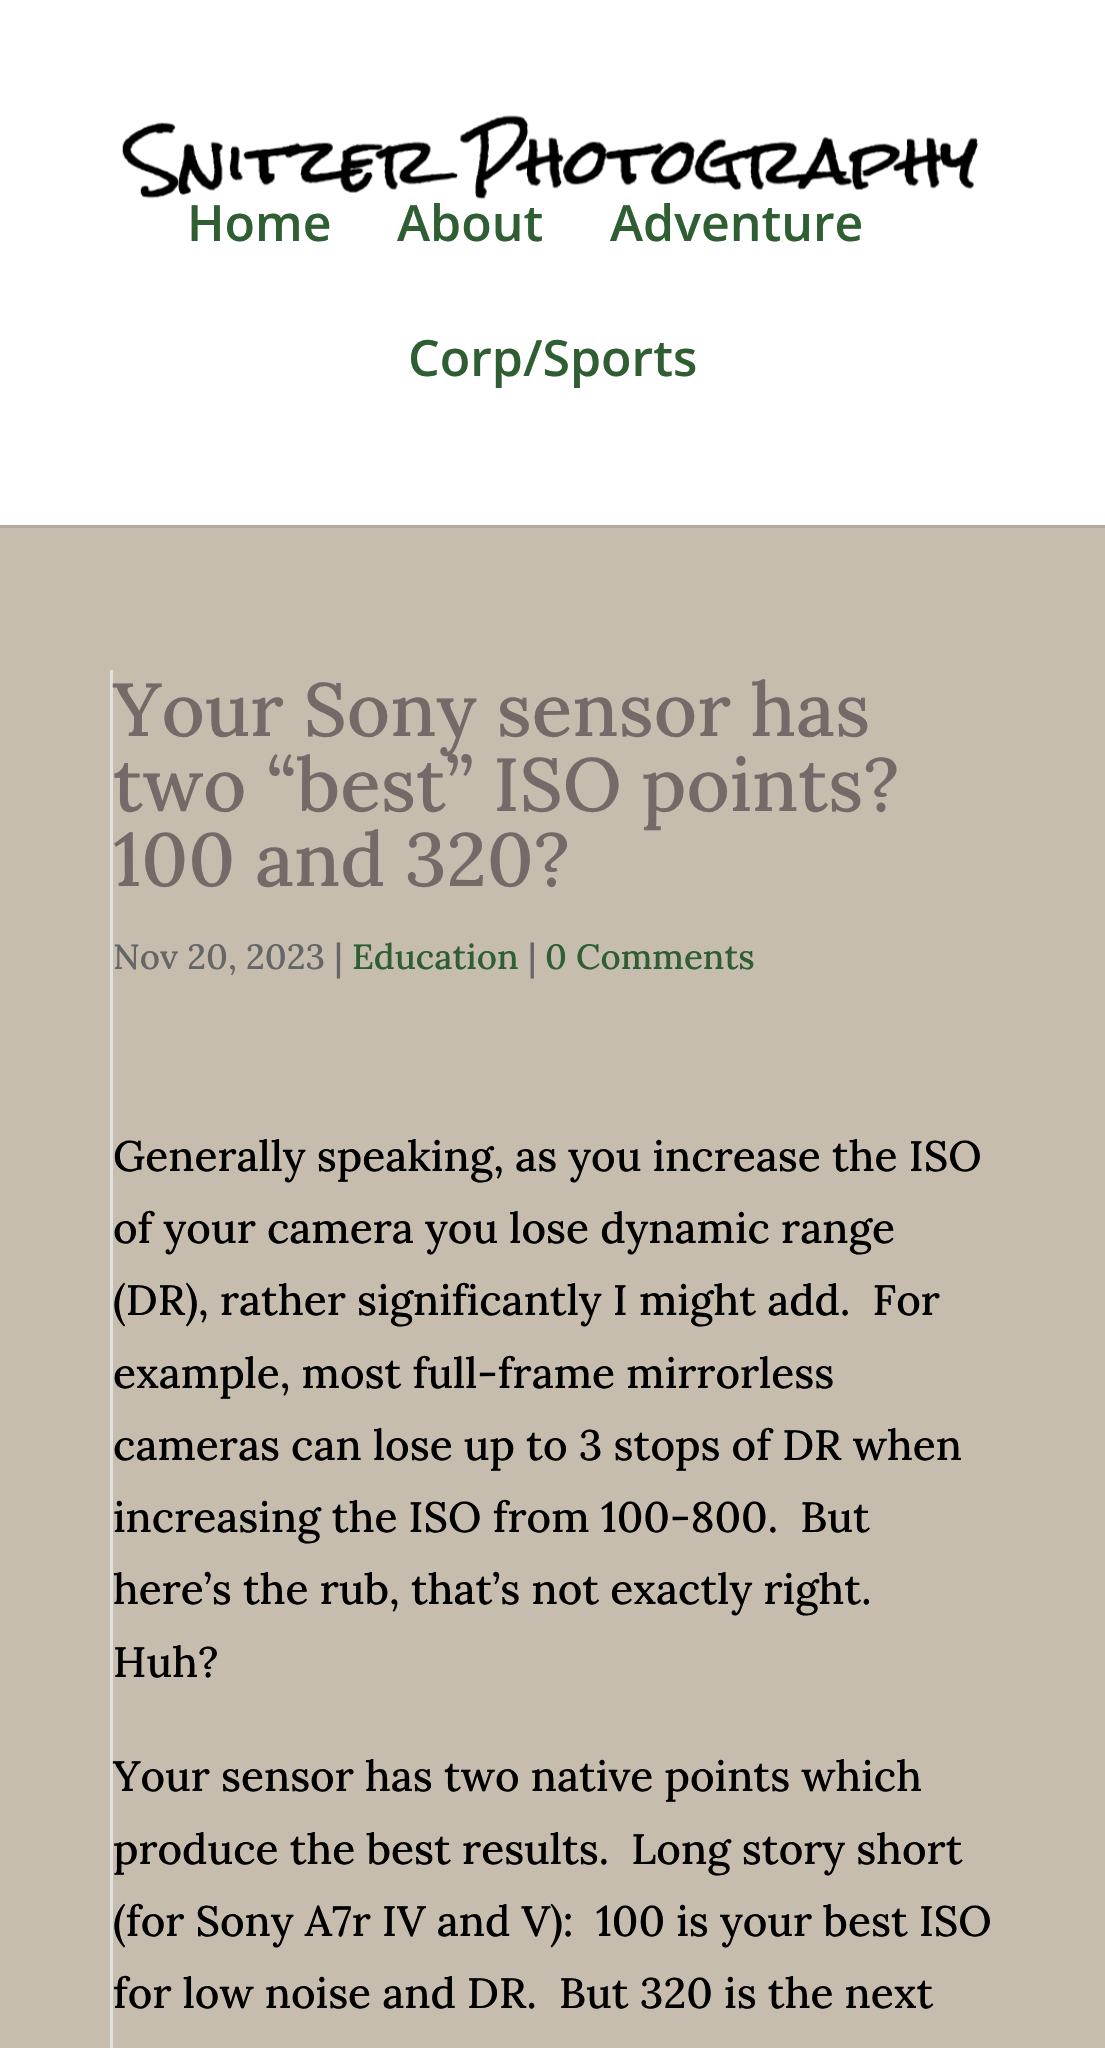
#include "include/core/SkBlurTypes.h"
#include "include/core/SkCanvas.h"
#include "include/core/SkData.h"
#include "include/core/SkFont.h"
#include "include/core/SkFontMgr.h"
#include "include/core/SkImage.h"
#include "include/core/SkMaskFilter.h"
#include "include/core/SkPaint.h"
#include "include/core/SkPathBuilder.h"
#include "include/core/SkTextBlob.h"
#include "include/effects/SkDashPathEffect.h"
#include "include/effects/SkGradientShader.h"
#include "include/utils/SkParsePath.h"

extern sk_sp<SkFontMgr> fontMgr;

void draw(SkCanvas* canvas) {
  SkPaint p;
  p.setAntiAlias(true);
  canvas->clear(SK_ColorWHITE);
  p.setColor(SkColorSetRGB(179, 170, 158));
  canvas->drawRect(SkRect::MakeLTRB(0, 525, 1105, 528), p);
  canvas->drawImageRect(SkImages::DeferredFromEncodedData(SkData::MakeFromFileName("images/1.png")), SkRect::MakeLTRB(122, 115, 979, 200), SkSamplingOptions());
  p.setColor(SkColorSetRGB(199, 189, 175));
  canvas->drawRect(SkRect::MakeLTRB(0, 528, 1105, 2048), p);
  p.setColor(SkColorSetRGB(226, 226, 226));
  canvas->drawRect(SkRect::MakeLTRB(110, 670, 113, 2048), p);
  SkFont font1(fontMgr->matchFamilyStyle("Open Sans", SkFontStyle(600, SkFontStyle::kNormal_Width, SkFontStyle::kUpright_Slant)), 50);
  font1.setSubpixel(true);
  p.setColor(SkColorSetRGB(47, 94, 51));
  canvas->drawString("Home", 187, 241, font1, p);
  canvas->drawString("About", 397, 241, font1, p);
  canvas->drawString("Adventure", 610, 241, font1, p);
  canvas->drawString("Corp/Sports", 408, 376, font1, p);
  SkFont font2(fontMgr->matchFamilyStyle("Lora", SkFontStyle(500, SkFontStyle::kNormal_Width, SkFontStyle::kUpright_Slant)), 75);
  font2.setSubpixel(true);
  p.setColor(SkColorSetRGB(117, 106, 104));
  canvas->drawString("Your Sony sensor has", 113, 736, font2, p);
  canvas->drawString("two “best” ISO points?", 113, 811, font2, p);
  canvas->drawString("100 and 320?", 113, 886, font2, p);
  SkFont font3(fontMgr->matchFamilyStyle("Lora", SkFontStyle(500, SkFontStyle::kNormal_Width, SkFontStyle::kUpright_Slant)), 35);
  font3.setSubpixel(true);
  p.setColor(SkColorSetRGB(102, 102, 102));
  canvas->drawString("Nov 20, 2023 |", 113, 969, font3, p);
  p.setColor(SkColorSetRGB(47, 94, 51));
  canvas->drawString("Education", 352, 969, font3, p);
  p.setColor(SkColorSetRGB(102, 102, 102));
  canvas->drawString("|", 528, 969, font3, p);
  p.setColor(SkColorSetRGB(47, 94, 51));
  canvas->drawString("0 Comments", 545, 969, font3, p);
  SkFont font4(fontMgr->matchFamilyStyle("Lora", SkFontStyle(500, SkFontStyle::kNormal_Width, SkFontStyle::kUpright_Slant)), 42.5f);
  font4.setSubpixel(true);
  p.setColor(SK_ColorBLACK);
  canvas->drawString("Generally speaking, as you increase the ISO", 113, 1171, font4, p);
  canvas->drawString("of your camera you lose dynamic range", 113, 1243, font4, p);
  canvas->drawString("(DR), rather significantly I might add.  For", 113, 1315, font4, p);
  canvas->drawString("example, most full-frame mirrorless", 113, 1388, font4, p);
  canvas->drawString("cameras can lose up to 3 stops of DR when", 113, 1460, font4, p);
  canvas->drawString("increasing the ISO from 100-800.  But", 113, 1532, font4, p);
  canvas->drawString("here’s the rub, that’s not exactly right.", 113, 1604, font4, p);
  canvas->drawString("Huh?", 113, 1677, font4, p);
  canvas->drawString("Your sensor has two native points which", 113, 1791, font4, p);
  canvas->drawString("produce the best results.  Long story short", 113, 1864, font4, p);
  canvas->drawString("(for Sony A7r IV and V):  100 is your best ISO", 113, 1936, font4, p);
  canvas->drawString("for low noise and DR.  But 320 is the next", 113, 2008, font4, p);
}
